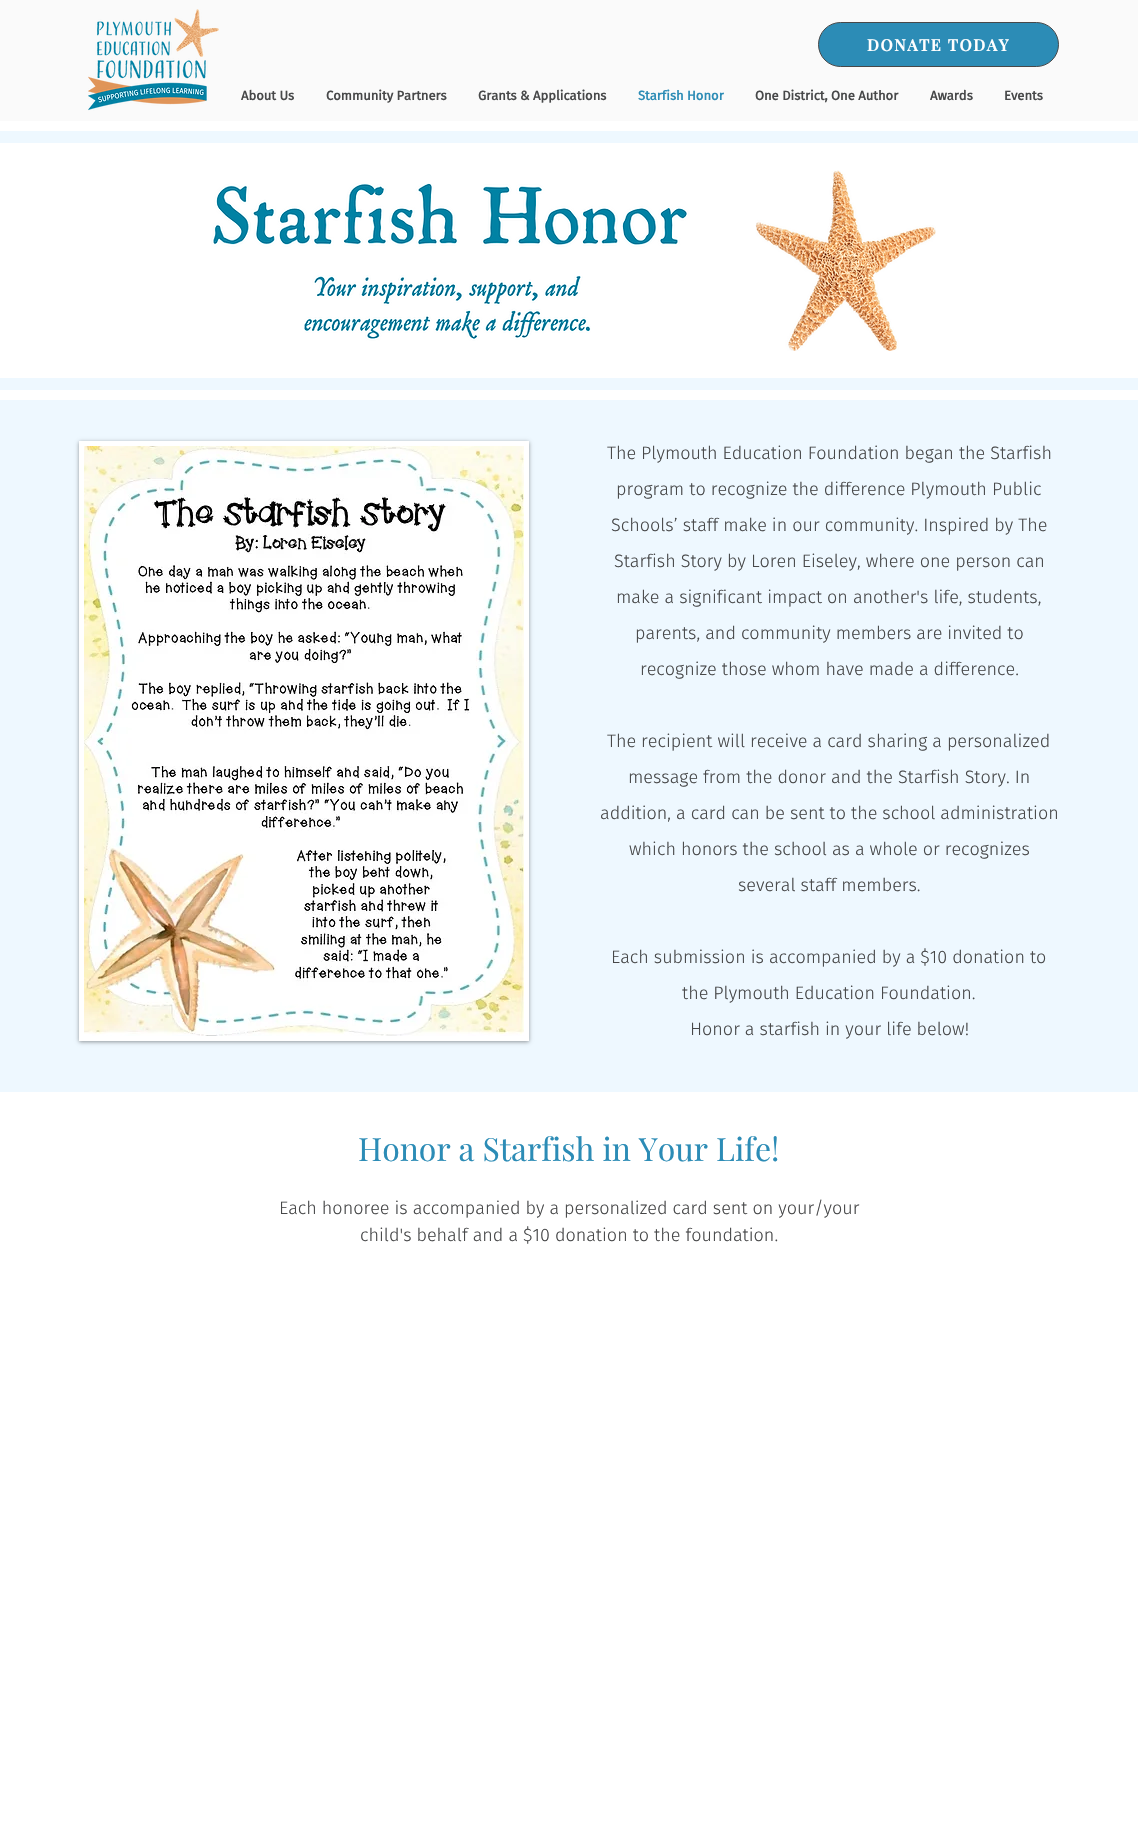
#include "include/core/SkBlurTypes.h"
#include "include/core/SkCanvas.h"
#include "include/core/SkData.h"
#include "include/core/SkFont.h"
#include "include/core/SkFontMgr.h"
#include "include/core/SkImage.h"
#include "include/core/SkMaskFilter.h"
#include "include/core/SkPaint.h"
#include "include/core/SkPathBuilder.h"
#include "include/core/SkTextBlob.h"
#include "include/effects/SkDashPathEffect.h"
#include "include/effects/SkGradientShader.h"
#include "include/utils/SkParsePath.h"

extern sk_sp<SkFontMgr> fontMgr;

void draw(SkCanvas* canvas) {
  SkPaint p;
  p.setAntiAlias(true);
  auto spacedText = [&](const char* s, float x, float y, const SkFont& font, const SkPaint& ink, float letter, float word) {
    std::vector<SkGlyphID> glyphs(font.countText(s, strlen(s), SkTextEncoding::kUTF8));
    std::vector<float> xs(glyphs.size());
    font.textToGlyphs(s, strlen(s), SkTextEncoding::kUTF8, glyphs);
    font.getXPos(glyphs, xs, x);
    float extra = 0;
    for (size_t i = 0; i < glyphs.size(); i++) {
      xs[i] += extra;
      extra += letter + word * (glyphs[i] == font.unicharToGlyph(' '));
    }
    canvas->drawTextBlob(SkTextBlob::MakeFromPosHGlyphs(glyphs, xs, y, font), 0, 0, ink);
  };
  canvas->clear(SK_ColorWHITE);
  p.setColor(SkColorSetRGB(250, 250, 250));
  canvas->drawRect(SkRect::MakeLTRB(0, 0, 1138, 121), p);
  canvas->drawImageRect(SkImages::DeferredFromEncodedData(SkData::MakeFromFileName("images/1.png")), SkRect::MakeLTRB(88, 9, 219, 111), SkSamplingOptions());
  p.setColor(SkColorSetRGB(44, 140, 182));
  canvas->drawRoundRect(SkRect::MakeLTRB(818.5f, 22.5f, 1058.5f, 66.5f), 22, 22, p);
  p.setStyle(SkPaint::kStroke_Style);
  p.setStrokeWidth(1);
  p.setColor(SkColorSetRGB(71, 72, 73));
  canvas->drawRoundRect(SkRect::MakeLTRB(818.5f, 22.5f, 1058.5f, 66.5f), 22, 22, p);
  p.setStyle(SkPaint::kFill_Style);
  p.setColor(SkColorSetRGB(238, 248, 255));
  canvas->drawRect(SkRect::MakeLTRB(0, 131, 1138, 143), p);
  canvas->drawImageRect(SkImages::DeferredFromEncodedData(SkData::MakeFromFileName("images/2.png")), SkRect::MakeLTRB(211, 183, 689, 247), SkSamplingOptions());
  canvas->drawImageRect(SkImages::DeferredFromEncodedData(SkData::MakeFromFileName("images/3.png")), SkRect::MakeLTRB(755, 170, 936, 351), SkSamplingOptions());
  canvas->drawImageRect(SkImages::DeferredFromEncodedData(SkData::MakeFromFileName("images/4.png")), SkRect::MakeLTRB(304, 275, 591, 341), SkSamplingOptions());
  canvas->drawRect(SkRect::MakeLTRB(0, 378, 1138, 390), p);
  canvas->drawRect(SkRect::MakeLTRB(0, 400, 1138, 1092), p);
  p.setColor(SkColorSetARGB(102, 0, 0, 0));
  p.setMaskFilter(SkMaskFilter::MakeBlur(kNormal_SkBlurStyle, 2));
  canvas->drawRect(SkRect::MakeLTRB(79, 442, 529, 1042), p);
  p.setMaskFilter(nullptr);
  p.setColor(SK_ColorWHITE);
  canvas->drawRect(SkRect::MakeLTRB(79, 441, 529, 1041), p);
  canvas->drawImageRect(SkImages::DeferredFromEncodedData(SkData::MakeFromFileName("images/5.png")), SkRect::MakeLTRB(84, 446, 524, 1036), SkSamplingOptions());
  SkFont font1(fontMgr->matchFamilyStyle("Playfair Display", SkFontStyle::Bold()), 16);
  font1.setSubpixel(true);
  spacedText("DONATE TODAY", 867, 51, font1, p, 1.6f, 0);
  SkFont font2(fontMgr->matchFamilyStyle("Fira Sans", SkFontStyle::Bold()), 13);
  font2.setSubpixel(true);
  p.setColor(SkColorSetRGB(71, 72, 73));
  canvas->drawString("About Us", 241, 100, font2, p);
  canvas->drawString("Community Partners", 326, 100, font2, p);
  canvas->drawString("Grants & Applications", 478, 100, font2, p);
  p.setColor(SkColorSetRGB(44, 140, 182));
  canvas->drawString("Starfish Honor", 638, 100, font2, p);
  p.setColor(SkColorSetRGB(71, 72, 73));
  canvas->drawString("One District, One Author", 755, 100, font2, p);
  canvas->drawString("Awards", 930, 100, font2, p);
  canvas->drawString("Events", 1004, 100, font2, p);
  SkFont font3(fontMgr->matchFamilyStyle("Fira Sans", SkFontStyle(300, SkFontStyle::kNormal_Width, SkFontStyle::kUpright_Slant)), 18);
  font3.setSubpixel(true);
  canvas->drawString("The Plymouth Education Foundation began the Starfish", 607, 459, font3, p);
  canvas->drawString("program to recognize the difference Plymouth Public", 616, 495, font3, p);
  canvas->drawString("Schools’ staff make in our community. Inspired by The", 611, 531, font3, p);
  canvas->drawString("Starfish Story by Loren Eiseley, where one person can", 614, 567, font3, p);
  canvas->drawString("make a significant impact on another's life, students,", 616, 603, font3, p);
  canvas->drawString("parents, and community members are invited to", 635, 639, font3, p);
  canvas->drawString("recognize those whom have made a difference.", 640, 675, font3, p);
  canvas->drawString("The recipient will receive a card sharing a personalized", 607, 747, font3, p);
  canvas->drawString("message from the donor and the Starfish Story. In", 628, 783, font3, p);
  canvas->drawString("addition, a card can be sent to the school administration", 600, 819, font3, p);
  canvas->drawString("which honors the school as a whole or recognizes", 629, 855, font3, p);
  canvas->drawString("several staff members.", 738, 891, font3, p);
  canvas->drawString("Each submission is accompanied by a $10 donation to", 611, 963, font3, p);
  canvas->drawString("the Plymouth Education Foundation.", 682, 999, font3, p);
  canvas->drawString("Honor a starfish in your life below!", 690, 1035, font3, p);
  SkFont font4(fontMgr->matchFamilyStyle("Playfair Display", SkFontStyle::Normal()), 32);
  font4.setSubpixel(true);
  p.setColor(SkColorSetRGB(44, 140, 182));
  canvas->drawString("Honor a Starfish in Your Life!", 358, 1161, font4, p);
  p.setColor(SkColorSetRGB(71, 72, 73));
  canvas->drawString("Each honoree is accompanied by a personalized card sent on your/your", 279, 1214, font3, p);
  canvas->drawString("child's behalf and a $10 donation to the foundation.", 360, 1241, font3, p);
}
